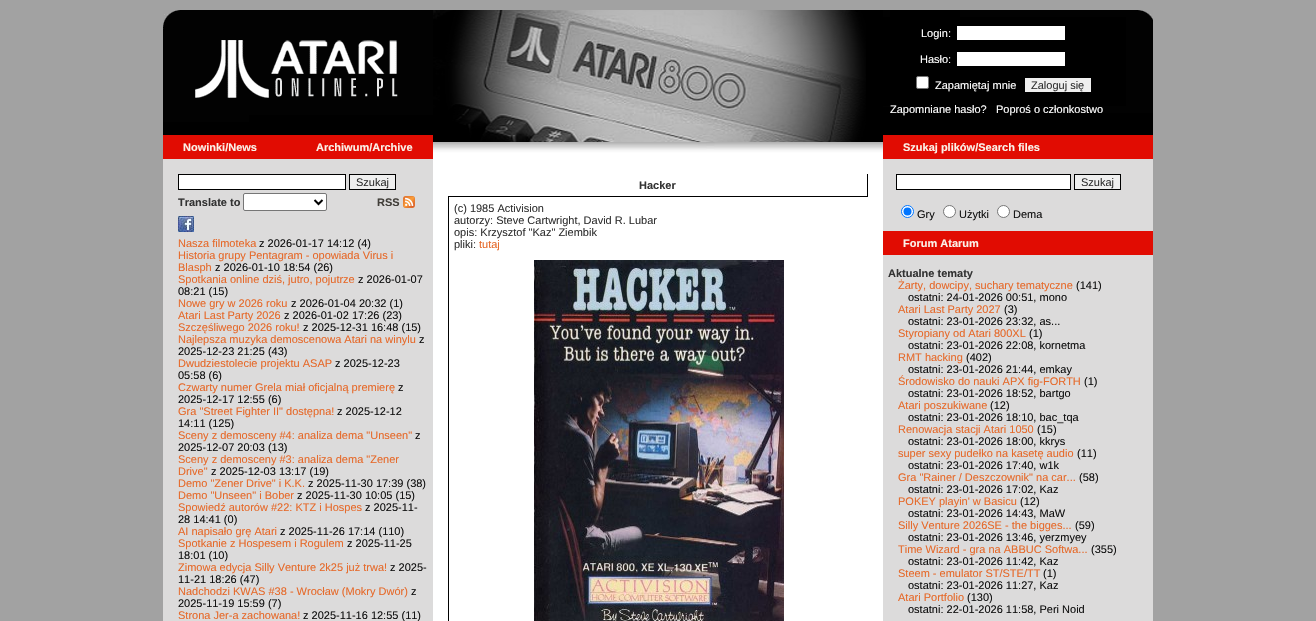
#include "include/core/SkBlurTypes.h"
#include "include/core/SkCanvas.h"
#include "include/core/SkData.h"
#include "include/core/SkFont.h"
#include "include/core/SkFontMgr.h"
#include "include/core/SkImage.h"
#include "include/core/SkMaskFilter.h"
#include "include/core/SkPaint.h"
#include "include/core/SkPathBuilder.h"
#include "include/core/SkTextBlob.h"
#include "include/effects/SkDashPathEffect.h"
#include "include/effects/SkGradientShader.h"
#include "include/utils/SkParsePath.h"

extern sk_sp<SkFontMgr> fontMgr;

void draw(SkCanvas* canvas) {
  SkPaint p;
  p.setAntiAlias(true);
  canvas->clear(SkColorSetRGB(162, 162, 162));
  canvas->drawImageRect(SkImages::DeferredFromEncodedData(SkData::MakeFromFileName("images/1.png")), SkRect::MakeLTRB(163, 10, 433, 135), SkSamplingOptions());
  p.setColor(SK_ColorBLACK);
  canvas->drawRect(SkRect::MakeLTRB(866, 10, 883, 142), p);
  canvas->drawImageRect(SkImages::DeferredFromEncodedData(SkData::MakeFromFileName("images/2.png")), SkRect::MakeLTRB(433, 10, 866, 142), SkSamplingOptions());
  canvas->drawImageRect(SkImages::DeferredFromEncodedData(SkData::MakeFromFileName("images/3.png")), SkRect::MakeLTRB(433, 142, 883, 159), SkSamplingOptions());
  canvas->drawImageRect(SkImages::DeferredFromEncodedData(SkData::MakeFromFileName("images/4.png")), SkRect::MakeLTRB(883, 10, 1153, 135), SkSamplingOptions());
  p.setColor(SK_ColorWHITE);
  canvas->drawRect(SkRect::MakeLTRB(957, 26, 1065, 40), p);
  canvas->drawRect(SkRect::MakeLTRB(957, 52, 1065, 66), p);
  canvas->drawRoundRect(SkRect::MakeLTRB(916.5f, 76.5f, 928.5f, 88.5f), 1.5f, 1.5f, p);
  p.setStyle(SkPaint::kStroke_Style);
  p.setStrokeWidth(1);
  p.setColor(SkColorSetRGB(118, 118, 118));
  canvas->drawRoundRect(SkRect::MakeLTRB(916.5f, 76.5f, 928.5f, 88.5f), 1.5f, 1.5f, p);
  p.setStyle(SkPaint::kFill_Style);
  p.setColor(SkColorSetRGB(239, 239, 239));
  canvas->drawRect(SkRect::MakeLTRB(1025, 78, 1091, 92), p);
  p.setColor(SkColorSetRGB(225, 12, 2));
  canvas->drawRect(SkRect::MakeLTRB(163, 135, 433, 159), p);
  canvas->drawRect(SkRect::MakeLTRB(883, 135, 1153, 159), p);
  p.setColor(SkColorSetRGB(220, 219, 219));
  canvas->drawRect(SkRect::MakeLTRB(163, 159, 433, 621), p);
  p.setColor(SK_ColorWHITE);
  canvas->drawRect(SkRect::MakeLTRB(178.5f, 174.5f, 345.5f, 189.5f), p);
  p.setStyle(SkPaint::kStroke_Style);
  p.setColor(SK_ColorBLACK);
  canvas->drawRect(SkRect::MakeLTRB(178.5f, 174.5f, 345.5f, 189.5f), p);
  p.setStyle(SkPaint::kFill_Style);
  p.setColor(SkColorSetRGB(239, 239, 239));
  canvas->drawRect(SkRect::MakeLTRB(349.5f, 174.5f, 395.5f, 189.5f), p);
  p.setStyle(SkPaint::kStroke_Style);
  p.setColor(SK_ColorBLACK);
  canvas->drawRect(SkRect::MakeLTRB(349.5f, 174.5f, 395.5f, 189.5f), p);
  p.setStyle(SkPaint::kFill_Style);
  p.setColor(SK_ColorWHITE);
  canvas->drawRoundRect(SkRect::MakeLTRB(243.5f, 193.5f, 326.5f, 210.5f), 1.5f, 1.5f, p);
  p.setStyle(SkPaint::kStroke_Style);
  p.setColor(SkColorSetRGB(118, 118, 118));
  canvas->drawRoundRect(SkRect::MakeLTRB(243.5f, 193.5f, 326.5f, 210.5f), 1.5f, 1.5f, p);
  p.setStrokeWidth(2);
  p.setColor(SK_ColorBLACK);
  canvas->drawPath(SkPathBuilder().moveTo(314.5f, 200).lineTo(318.5f, 204).lineTo(322.5f, 200).detach(), p);
  canvas->drawImageRect(SkImages::DeferredFromEncodedData(SkData::MakeFromFileName("images/5.png")), SkRect::MakeLTRB(403, 196, 415, 208), SkSamplingOptions());
  canvas->drawImageRect(SkImages::DeferredFromEncodedData(SkData::MakeFromFileName("images/6.png")), SkRect::MakeLTRB(178, 216, 194, 232), SkSamplingOptions());
  p.setStyle(SkPaint::kFill_Style);
  p.setColor(SK_ColorWHITE);
  canvas->drawRect(SkRect::MakeLTRB(433, 159, 883, 621), p);
  p.setColor(SK_ColorBLACK);
  canvas->drawRect(SkRect::MakeLTRB(867, 174, 868, 197), p);
  canvas->drawRect(SkRect::MakeLTRB(448, 196, 868, 197), p);
  canvas->drawRect(SkRect::MakeLTRB(448, 197, 449, 621), p);
  canvas->drawImageRect(SkImages::DeferredFromEncodedData(SkData::MakeFromFileName("images/7.png")), SkRect::MakeLTRB(534, 260, 784, 621), SkSamplingOptions());
  p.setColor(SkColorSetRGB(220, 219, 219));
  canvas->drawRect(SkRect::MakeLTRB(883, 159, 1153, 621), p);
  p.setColor(SK_ColorWHITE);
  canvas->drawRect(SkRect::MakeLTRB(896.5f, 174.5f, 1070.5f, 189.5f), p);
  p.setStyle(SkPaint::kStroke_Style);
  p.setStrokeWidth(1);
  p.setColor(SK_ColorBLACK);
  canvas->drawRect(SkRect::MakeLTRB(896.5f, 174.5f, 1070.5f, 189.5f), p);
  p.setStyle(SkPaint::kFill_Style);
  p.setColor(SkColorSetRGB(239, 239, 239));
  canvas->drawRect(SkRect::MakeLTRB(1074.5f, 174.5f, 1120.5f, 189.5f), p);
  p.setStyle(SkPaint::kStroke_Style);
  p.setColor(SK_ColorBLACK);
  canvas->drawRect(SkRect::MakeLTRB(1074.5f, 174.5f, 1120.5f, 189.5f), p);
  p.setStyle(SkPaint::kFill_Style);
  p.setColor(SK_ColorWHITE);
  canvas->drawCircle(907.5f, 211.5f, 6, p);
  p.setStyle(SkPaint::kStroke_Style);
  p.setColor(SkColorSetRGB(0, 117, 255));
  canvas->drawCircle(907.5f, 211.5f, 6, p);
  p.setStyle(SkPaint::kFill_Style);
  canvas->drawCircle(907.5f, 211.5f, 4, p);
  p.setColor(SK_ColorWHITE);
  canvas->drawCircle(949.5f, 211.5f, 6, p);
  p.setStyle(SkPaint::kStroke_Style);
  p.setColor(SkColorSetRGB(118, 118, 118));
  canvas->drawCircle(949.5f, 211.5f, 6, p);
  p.setStyle(SkPaint::kFill_Style);
  p.setColor(SK_ColorWHITE);
  canvas->drawCircle(1003.5f, 211.5f, 6, p);
  p.setStyle(SkPaint::kStroke_Style);
  p.setColor(SkColorSetRGB(118, 118, 118));
  canvas->drawCircle(1003.5f, 211.5f, 6, p);
  p.setStyle(SkPaint::kFill_Style);
  p.setColor(SkColorSetRGB(225, 12, 2));
  canvas->drawRect(SkRect::MakeLTRB(883, 231, 1153, 255), p);
  SkFont font1(fontMgr->matchFamilyStyle("Liberation Sans", SkFontStyle::Normal()), 11);
  font1.setSubpixel(true);
  p.setColor(SK_ColorWHITE);
  canvas->drawString("Login:", 921, 37, font1, p);
  canvas->drawString("Hasło:", 920, 63, font1, p);
  canvas->drawString("Zapamiętaj mnie", 935, 89, font1, p);
  p.setColor(SkColorSetRGB(51, 51, 51));
  canvas->drawString("Zaloguj się", 1031, 89, font1, p);
  p.setColor(SK_ColorWHITE);
  canvas->drawString("Zapomniane hasło?", 890, 113, font1, p);
  canvas->drawString("Poproś o członkostwo", 996, 113, font1, p);
  SkFont font2(fontMgr->matchFamilyStyle("Liberation Sans", SkFontStyle::Bold()), 11);
  font2.setSubpixel(true);
  p.setColor(SkColorSetRGB(251, 242, 233));
  canvas->drawString("Nowinki/News", 183, 151, font2, p);
  canvas->drawString("Archiwum/Archive", 316, 151, font2, p);
  canvas->drawString("Szukaj plików/Search files", 903, 151, font2, p);
  p.setColor(SkColorSetRGB(51, 51, 51));
  canvas->drawString("Szukaj", 356, 186, font1, p);
  canvas->drawString("Translate to", 178, 206, font2, p);
  p.setColor(SkColorSetRGB(66, 63, 58));
  canvas->drawString("RSS", 377, 206, font2, p);
  p.setColor(SkColorSetRGB(230, 105, 41));
  canvas->drawString("Nasza filmoteka", 178, 247, font1, p);
  p.setColor(SkColorSetRGB(17, 17, 17));
  canvas->drawString("z 2026-01-17 14:12 (4)", 259, 247, font1, p);
  p.setColor(SkColorSetRGB(230, 105, 41));
  canvas->drawString("Historia grupy Pentagram - opowiada Virus i", 178, 259, font1, p);
  canvas->drawString("Blasph", 178, 271, font1, p);
  p.setColor(SkColorSetRGB(17, 17, 17));
  canvas->drawString("z 2026-01-10 18:54 (26)", 215, 271, font1, p);
  p.setColor(SkColorSetRGB(230, 105, 41));
  canvas->drawString("Spotkania online dziś, jutro, pojutrze", 178, 283, font1, p);
  p.setColor(SkColorSetRGB(17, 17, 17));
  canvas->drawString("z 2026-01-07", 358, 283, font1, p);
  canvas->drawString("08:21 (15)", 178, 295, font1, p);
  p.setColor(SkColorSetRGB(230, 105, 41));
  canvas->drawString("Nowe gry w 2026 roku", 178, 307, font1, p);
  p.setColor(SkColorSetRGB(17, 17, 17));
  canvas->drawString("z 2026-01-04 20:32 (1)", 291, 307, font1, p);
  p.setColor(SkColorSetRGB(230, 105, 41));
  canvas->drawString("Atari Last Party 2026", 178, 319, font1, p);
  p.setColor(SkColorSetRGB(17, 17, 17));
  canvas->drawString("z 2026-01-02 17:26 (23)", 284, 319, font1, p);
  p.setColor(SkColorSetRGB(230, 105, 41));
  canvas->drawString("Szczęśliwego 2026 roku!", 178, 331, font1, p);
  p.setColor(SkColorSetRGB(17, 17, 17));
  canvas->drawString("z 2025-12-31 16:48 (15)", 303, 331, font1, p);
  p.setColor(SkColorSetRGB(230, 105, 41));
  canvas->drawString("Najlepsza muzyka demoscenowa Atari na winylu", 178, 343, font1, p);
  p.setColor(SkColorSetRGB(17, 17, 17));
  canvas->drawString("z", 419, 343, font1, p);
  canvas->drawString("2025-12-23 21:25 (43)", 178, 355, font1, p);
  p.setColor(SkColorSetRGB(230, 105, 41));
  canvas->drawString("Dwudziestolecie projektu ASAP", 178, 367, font1, p);
  p.setColor(SkColorSetRGB(17, 17, 17));
  canvas->drawString("z 2025-12-23", 335, 367, font1, p);
  canvas->drawString("05:58 (6)", 178, 379, font1, p);
  p.setColor(SkColorSetRGB(230, 105, 41));
  canvas->drawString("Czwarty numer Grela miał oficjalną premierę", 178, 391, font1, p);
  p.setColor(SkColorSetRGB(17, 17, 17));
  canvas->drawString("z", 398, 391, font1, p);
  canvas->drawString("2025-12-17 12:55 (6)", 178, 403, font1, p);
  p.setColor(SkColorSetRGB(230, 105, 41));
  canvas->drawString("Gra \"Street Fighter II\" dostępna!", 178, 415, font1, p);
  p.setColor(SkColorSetRGB(17, 17, 17));
  canvas->drawString("z 2025-12-12", 337, 415, font1, p);
  canvas->drawString("14:11 (125)", 178, 427, font1, p);
  p.setColor(SkColorSetRGB(230, 105, 41));
  canvas->drawString("Sceny z demosceny #4: analiza dema \"Unseen\"", 178, 439, font1, p);
  p.setColor(SkColorSetRGB(17, 17, 17));
  canvas->drawString("z", 415, 439, font1, p);
  canvas->drawString("2025-12-07 20:03 (13)", 178, 451, font1, p);
  p.setColor(SkColorSetRGB(230, 105, 41));
  canvas->drawString("Sceny z demosceny #3: analiza dema \"Zener", 178, 463, font1, p);
  canvas->drawString("Drive\"", 178, 475, font1, p);
  p.setColor(SkColorSetRGB(17, 17, 17));
  canvas->drawString("z 2025-12-03 13:17 (19)", 211, 475, font1, p);
  p.setColor(SkColorSetRGB(230, 105, 41));
  canvas->drawString("Demo \"Zener Drive\" i K.K.", 178, 487, font1, p);
  p.setColor(SkColorSetRGB(17, 17, 17));
  canvas->drawString("z 2025-11-30 17:39 (38)", 308, 487, font1, p);
  p.setColor(SkColorSetRGB(230, 105, 41));
  canvas->drawString("Demo \"Unseen\" i Bober", 178, 499, font1, p);
  p.setColor(SkColorSetRGB(17, 17, 17));
  canvas->drawString("z 2025-11-30 10:05 (15)", 297, 499, font1, p);
  p.setColor(SkColorSetRGB(230, 105, 41));
  canvas->drawString("Spowiedź autorów #22: KTZ i Hospes", 178, 511, font1, p);
  p.setColor(SkColorSetRGB(17, 17, 17));
  canvas->drawString("z 2025-11-", 365, 511, font1, p);
  canvas->drawString("28 14:41 (0)", 178, 523, font1, p);
  p.setColor(SkColorSetRGB(230, 105, 41));
  canvas->drawString("AI napisało grę Atari", 178, 535, font1, p);
  p.setColor(SkColorSetRGB(17, 17, 17));
  canvas->drawString("z 2025-11-26 17:14 (110)", 280, 535, font1, p);
  p.setColor(SkColorSetRGB(230, 105, 41));
  canvas->drawString("Spotkanie z Hospesem i Rogulem", 178, 547, font1, p);
  p.setColor(SkColorSetRGB(17, 17, 17));
  canvas->drawString("z 2025-11-25", 347, 547, font1, p);
  canvas->drawString("18:01 (10)", 178, 559, font1, p);
  p.setColor(SkColorSetRGB(230, 105, 41));
  canvas->drawString("Zimowa edycja Silly Venture 2k25 już trwa!", 178, 571, font1, p);
  p.setColor(SkColorSetRGB(17, 17, 17));
  canvas->drawString("z 2025-", 390, 571, font1, p);
  canvas->drawString("11-21 18:26 (47)", 178, 583, font1, p);
  p.setColor(SkColorSetRGB(230, 105, 41));
  canvas->drawString("Nadchodzi KWAS #38 - Wrocław (Mokry Dwór)", 178, 595, font1, p);
  p.setColor(SkColorSetRGB(17, 17, 17));
  canvas->drawString("z", 411, 595, font1, p);
  canvas->drawString("2025-11-19 15:59 (7)", 178, 607, font1, p);
  p.setColor(SkColorSetRGB(230, 105, 41));
  canvas->drawString("Strona Jer-a zachowana!", 178, 619, font1, p);
  p.setColor(SkColorSetRGB(17, 17, 17));
  canvas->drawString("z 2025-11-16 12:55 (11)", 303, 619, font1, p);
  p.setColor(SkColorSetRGB(51, 51, 51));
  canvas->drawString("Hacker", 639, 189, font2, p);
  canvas->drawString("(c) 1985 Activision", 454, 212, font1, p);
  canvas->drawString("autorzy: Steve Cartwright, David R. Lubar", 454, 224, font1, p);
  canvas->drawString("opis: Krzysztof \"Kaz\" Ziembik", 454, 236, font1, p);
  canvas->drawString("pliki:", 454, 248, font1, p);
  p.setColor(SkColorSetRGB(230, 105, 41));
  canvas->drawString("tutaj", 479, 248, font1, p);
  p.setColor(SkColorSetRGB(51, 51, 51));
  canvas->drawString("Szukaj", 1081, 186, font1, p);
  p.setColor(SkColorSetRGB(17, 17, 17));
  canvas->drawString("Gry", 917, 218, font1, p);
  canvas->drawString("Użytki", 959, 218, font1, p);
  canvas->drawString("Dema", 1013, 218, font1, p);
  p.setColor(SkColorSetRGB(251, 242, 233));
  canvas->drawString("Forum Atarum", 903, 247, font2, p);
  p.setColor(SkColorSetRGB(51, 51, 51));
  canvas->drawString("Aktualne tematy", 888, 277, font2, p);
  p.setColor(SkColorSetRGB(230, 105, 41));
  canvas->drawString("Żarty, dowcipy, suchary tematyczne", 898, 289, font1, p);
  p.setColor(SkColorSetRGB(17, 17, 17));
  canvas->drawString("(141)", 1076, 289, font1, p);
  canvas->drawString("ostatni: 24-01-2026 00:51, mono", 908, 301, font1, p);
  p.setColor(SkColorSetRGB(230, 105, 41));
  canvas->drawString("Atari Last Party 2027", 898, 313, font1, p);
  p.setColor(SkColorSetRGB(17, 17, 17));
  canvas->drawString("(3)", 1004, 313, font1, p);
  canvas->drawString("ostatni: 23-01-2026 23:32, as...", 908, 325, font1, p);
  p.setColor(SkColorSetRGB(230, 105, 41));
  canvas->drawString("Styropiany od Atari 800XL", 898, 337, font1, p);
  p.setColor(SkColorSetRGB(17, 17, 17));
  canvas->drawString("(1)", 1029, 337, font1, p);
  canvas->drawString("ostatni: 23-01-2026 22:08, kornetma", 908, 349, font1, p);
  p.setColor(SkColorSetRGB(230, 105, 41));
  canvas->drawString("RMT hacking", 898, 361, font1, p);
  p.setColor(SkColorSetRGB(17, 17, 17));
  canvas->drawString("(402)", 966, 361, font1, p);
  canvas->drawString("ostatni: 23-01-2026 21:44, emkay", 908, 373, font1, p);
  p.setColor(SkColorSetRGB(230, 105, 41));
  canvas->drawString("Środowisko do nauki APX fig-FORTH", 898, 385, font1, p);
  p.setColor(SkColorSetRGB(17, 17, 17));
  canvas->drawString("(1)", 1084, 385, font1, p);
  canvas->drawString("ostatni: 23-01-2026 18:52, bartgo", 908, 397, font1, p);
  p.setColor(SkColorSetRGB(230, 105, 41));
  canvas->drawString("Atari poszukiwane", 898, 409, font1, p);
  p.setColor(SkColorSetRGB(17, 17, 17));
  canvas->drawString("(12)", 990, 409, font1, p);
  canvas->drawString("ostatni: 23-01-2026 18:10, bac_tqa", 908, 421, font1, p);
  p.setColor(SkColorSetRGB(230, 105, 41));
  canvas->drawString("Renowacja stacji Atari 1050", 898, 433, font1, p);
  p.setColor(SkColorSetRGB(17, 17, 17));
  canvas->drawString("(15)", 1037, 433, font1, p);
  canvas->drawString("ostatni: 23-01-2026 18:00, kkrys", 908, 445, font1, p);
  p.setColor(SkColorSetRGB(230, 105, 41));
  canvas->drawString("super sexy pudełko na kasetę audio", 898, 457, font1, p);
  p.setColor(SkColorSetRGB(17, 17, 17));
  canvas->drawString("(11)", 1077, 457, font1, p);
  canvas->drawString("ostatni: 23-01-2026 17:40, w1k", 908, 469, font1, p);
  p.setColor(SkColorSetRGB(230, 105, 41));
  canvas->drawString("Gra \"Rainer / Deszczownik\" na car...", 898, 481, font1, p);
  p.setColor(SkColorSetRGB(17, 17, 17));
  canvas->drawString("(58)", 1079, 481, font1, p);
  canvas->drawString("ostatni: 23-01-2026 17:02, Kaz", 908, 493, font1, p);
  p.setColor(SkColorSetRGB(230, 105, 41));
  canvas->drawString("POKEY playin' w Basicu", 898, 505, font1, p);
  p.setColor(SkColorSetRGB(17, 17, 17));
  canvas->drawString("(12)", 1020, 505, font1, p);
  canvas->drawString("ostatni: 23-01-2026 14:43, MaW", 908, 517, font1, p);
  p.setColor(SkColorSetRGB(230, 105, 41));
  canvas->drawString("Silly Venture 2026SE - the bigges...", 898, 529, font1, p);
  p.setColor(SkColorSetRGB(17, 17, 17));
  canvas->drawString("(59)", 1075, 529, font1, p);
  canvas->drawString("ostatni: 23-01-2026 13:46, yerzmyey", 908, 541, font1, p);
  p.setColor(SkColorSetRGB(230, 105, 41));
  canvas->drawString("Time Wizard - gra na ABBUC Softwa...", 898, 553, font1, p);
  p.setColor(SkColorSetRGB(17, 17, 17));
  canvas->drawString("(355)", 1091, 553, font1, p);
  canvas->drawString("ostatni: 23-01-2026 11:42, Kaz", 908, 565, font1, p);
  p.setColor(SkColorSetRGB(230, 105, 41));
  canvas->drawString("Steem - emulator ST/STE/TT", 898, 577, font1, p);
  p.setColor(SkColorSetRGB(17, 17, 17));
  canvas->drawString("(1)", 1043, 577, font1, p);
  canvas->drawString("ostatni: 23-01-2026 11:27, Kaz", 908, 589, font1, p);
  p.setColor(SkColorSetRGB(230, 105, 41));
  canvas->drawString("Atari Portfolio", 898, 601, font1, p);
  p.setColor(SkColorSetRGB(17, 17, 17));
  canvas->drawString("(130)", 967, 601, font1, p);
  canvas->drawString("ostatni: 22-01-2026 11:58, Peri Noid", 908, 613, font1, p);
}
